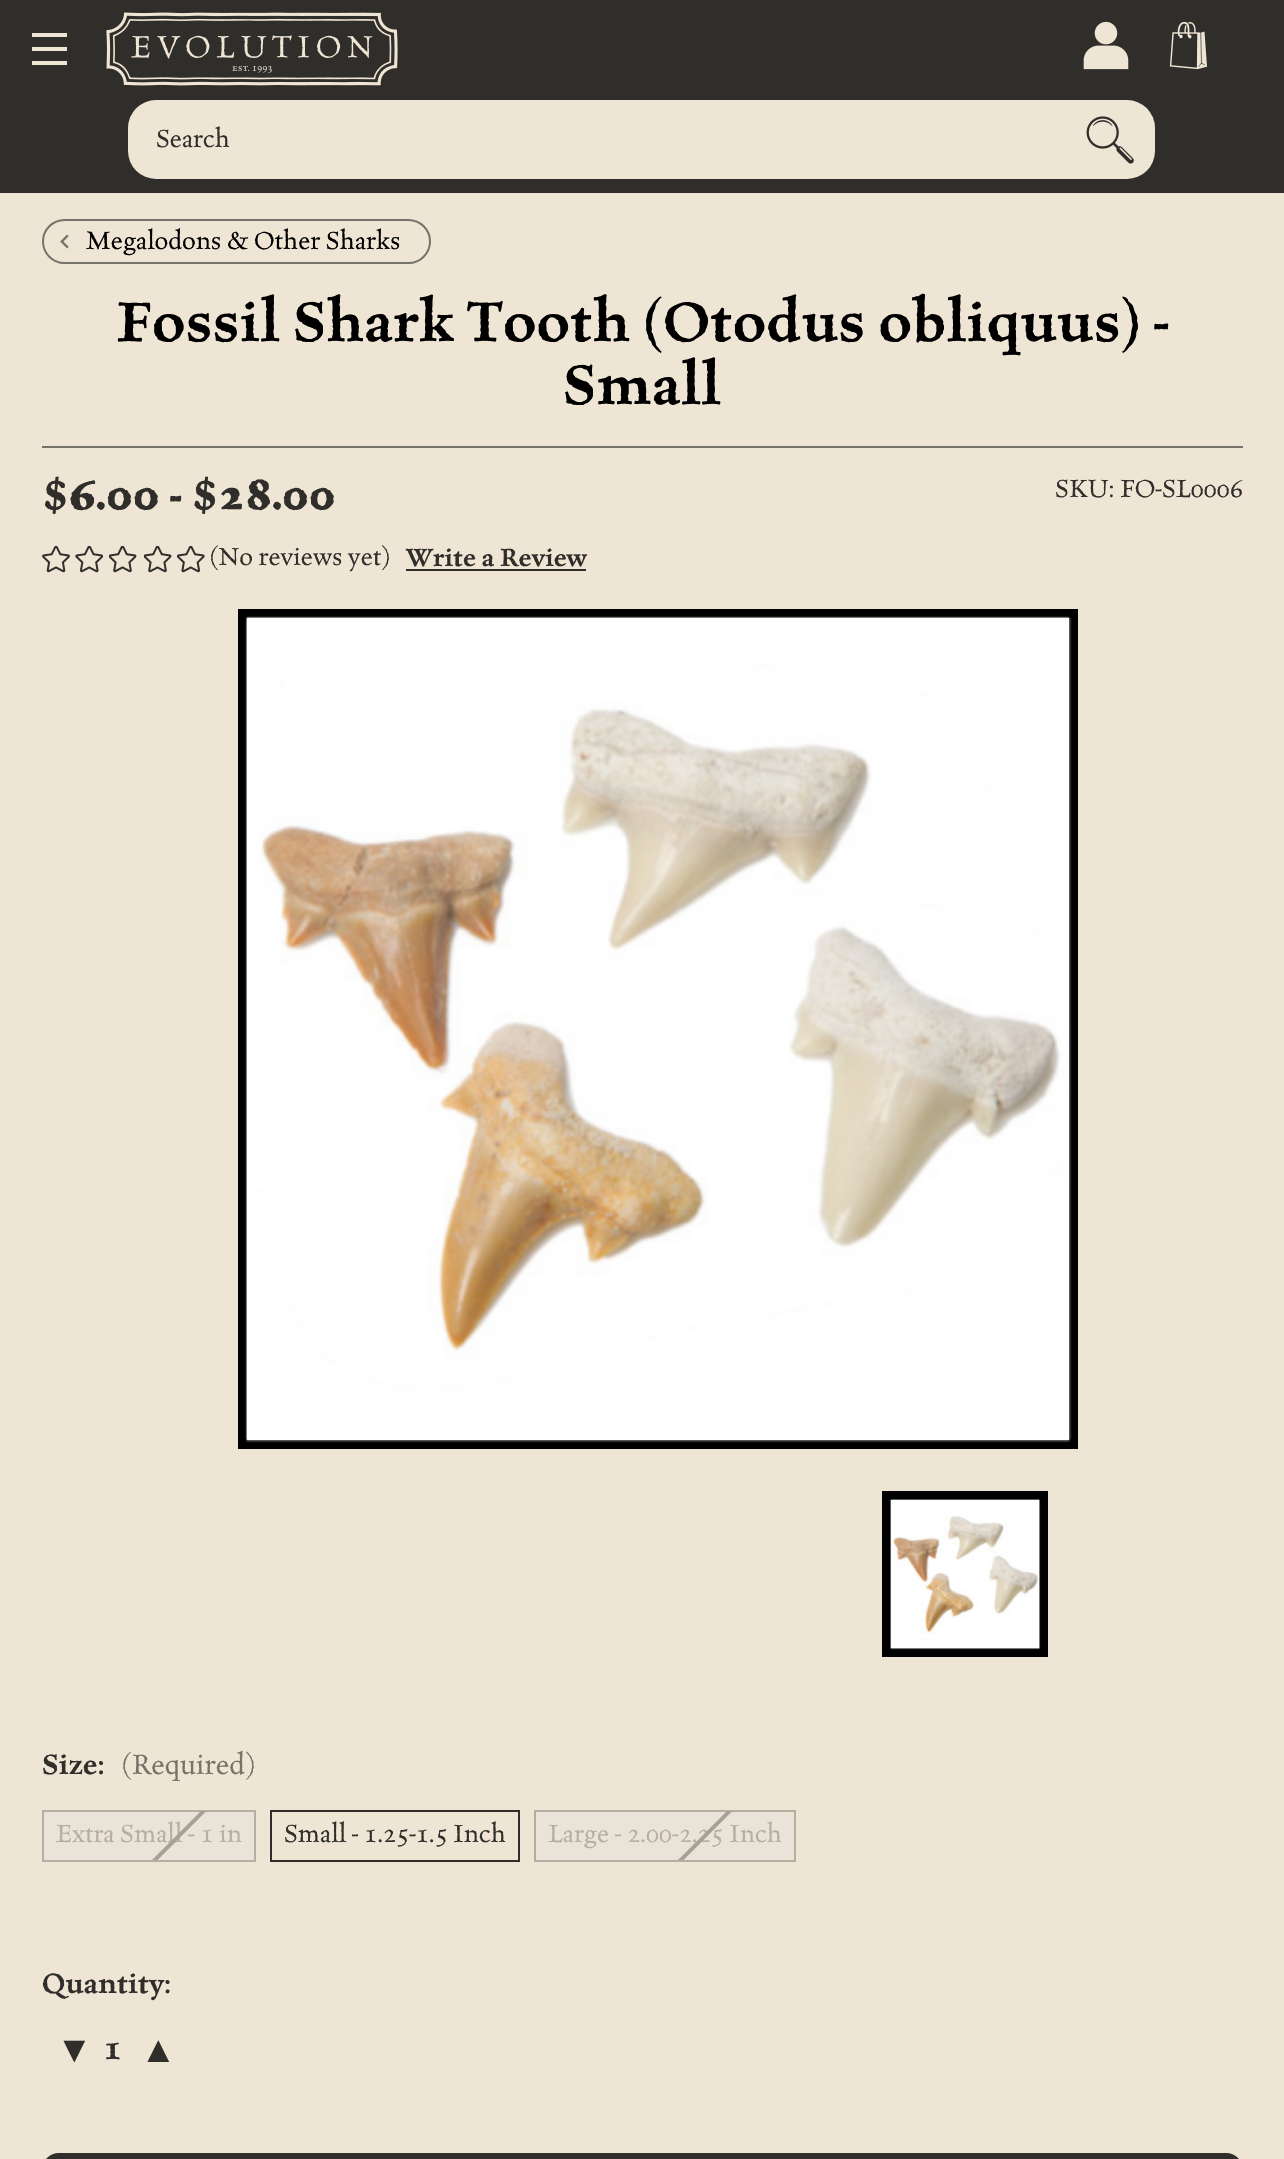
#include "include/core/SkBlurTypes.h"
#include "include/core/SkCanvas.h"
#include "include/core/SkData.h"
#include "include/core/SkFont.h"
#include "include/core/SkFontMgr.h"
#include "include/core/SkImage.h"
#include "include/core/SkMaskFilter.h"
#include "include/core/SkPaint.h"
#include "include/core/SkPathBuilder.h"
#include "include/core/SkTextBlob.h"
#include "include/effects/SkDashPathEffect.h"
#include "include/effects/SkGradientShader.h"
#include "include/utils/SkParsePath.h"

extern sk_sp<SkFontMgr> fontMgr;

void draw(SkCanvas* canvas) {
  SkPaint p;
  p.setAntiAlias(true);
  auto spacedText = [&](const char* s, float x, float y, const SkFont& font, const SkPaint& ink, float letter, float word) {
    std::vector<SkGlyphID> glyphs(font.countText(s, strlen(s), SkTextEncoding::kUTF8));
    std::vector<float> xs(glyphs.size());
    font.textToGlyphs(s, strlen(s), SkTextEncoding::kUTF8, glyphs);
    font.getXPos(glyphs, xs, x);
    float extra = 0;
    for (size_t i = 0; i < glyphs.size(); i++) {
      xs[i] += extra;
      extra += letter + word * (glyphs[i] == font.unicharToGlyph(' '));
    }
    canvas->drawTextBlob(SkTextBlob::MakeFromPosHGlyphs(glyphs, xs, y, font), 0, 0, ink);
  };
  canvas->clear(SkColorSetRGB(239, 229, 213));
  p.setColor(SkColorSetRGB(48, 46, 43));
  canvas->drawRect(SkRect::MakeLTRB(0, 0, 1284, 193), p);
  p.setColor(SkColorSetRGB(239, 229, 213));
  canvas->drawRect(SkRect::MakeLTRB(32, 47, 67, 51), p);
  canvas->drawRect(SkRect::MakeLTRB(32, 33, 67, 37), p);
  canvas->drawRect(SkRect::MakeLTRB(32, 61, 67, 65), p);
  canvas->drawImageRect(SkImages::DeferredFromEncodedData(SkData::MakeFromFileName("images/1.png")), SkRect::MakeLTRB(106, 12, 398, 86), SkSamplingOptions());
  canvas->drawImageRect(SkImages::DeferredFromEncodedData(SkData::MakeFromFileName("images/2.png")), SkRect::MakeLTRB(1083, 21, 1129, 70), SkSamplingOptions());
  canvas->drawImageRect(SkImages::DeferredFromEncodedData(SkData::MakeFromFileName("images/3.png")), SkRect::MakeLTRB(1169, 21, 1207, 70), SkSamplingOptions());
  canvas->drawRoundRect(SkRect::MakeLTRB(128, 100, 1155, 179), 28, 28, p);
  canvas->drawImageRect(SkImages::DeferredFromEncodedData(SkData::MakeFromFileName("images/4.png")), SkRect::MakeLTRB(1086, 116, 1134, 164), SkSamplingOptions());
  p.setStyle(SkPaint::kStroke_Style);
  p.setStrokeWidth(2);
  p.setColor(SkColorSetRGB(118, 114, 105));
  canvas->drawRoundRect(SkRect::MakeLTRB(43, 220, 430, 263), 21.5f, 21.5f, p);
  canvas->drawImageRect(SkImages::DeferredFromEncodedData(SkData::MakeFromFileName("images/5.png")), SkRect::MakeLTRB(60, 234, 69, 249), SkSamplingOptions());
  p.setStyle(SkPaint::kFill_Style);
  canvas->drawRect(SkRect::MakeLTRB(42, 446, 1243, 448), p);
  canvas->drawImageRect(SkImages::DeferredFromEncodedData(SkData::MakeFromFileName("images/6.png")), SkRect::MakeLTRB(42, 546, 70, 573), SkSamplingOptions());
  canvas->drawImageRect(SkImages::DeferredFromEncodedData(SkData::MakeFromFileName("images/7.png")), SkRect::MakeLTRB(75, 546, 103, 573), SkSamplingOptions());
  canvas->drawImageRect(SkImages::DeferredFromEncodedData(SkData::MakeFromFileName("images/8.png")), SkRect::MakeLTRB(109, 546, 137, 573), SkSamplingOptions());
  canvas->drawImageRect(SkImages::DeferredFromEncodedData(SkData::MakeFromFileName("images/8.png")), SkRect::MakeLTRB(144, 546, 172, 573), SkSamplingOptions());
  canvas->drawImageRect(SkImages::DeferredFromEncodedData(SkData::MakeFromFileName("images/9.png")), SkRect::MakeLTRB(177, 546, 205, 573), SkSamplingOptions());
  p.setColor(SkColorSetRGB(48, 46, 43));
  canvas->drawRect(SkRect::MakeLTRB(406, 569, 586, 571), p);
  p.setColor(SK_ColorWHITE);
  canvas->drawRect(SkRect::MakeLTRB(242.5f, 613.5f, 1073.5f, 1444.5f), p);
  p.setStyle(SkPaint::kStroke_Style);
  p.setStrokeWidth(9);
  p.setColor(SK_ColorBLACK);
  canvas->drawRect(SkRect::MakeLTRB(242.5f, 613.5f, 1073.5f, 1444.5f), p);
  canvas->drawImageRect(SkImages::DeferredFromEncodedData(SkData::MakeFromFileName("images/10.png")), SkRect::MakeLTRB(245, 616, 1072, 1443), SkSamplingOptions());
  canvas->drawRect(SkRect::MakeLTRB(886.5f, 1495.5f, 1043.5f, 1652.5f), p);
  canvas->drawImageRect(SkImages::DeferredFromEncodedData(SkData::MakeFromFileName("images/11.png")), SkRect::MakeLTRB(890, 1499, 1041, 1650), SkSamplingOptions());
  p.setStyle(SkPaint::kFill_Style);
  p.setColor(SkColorSetRGB(234, 227, 215));
  canvas->drawRect(SkRect::MakeLTRB(43, 1811, 255, 1861), p);
  p.setStyle(SkPaint::kStroke_Style);
  p.setStrokeWidth(2);
  p.setColor(SkColorSetRGB(182, 174, 162));
  canvas->drawRect(SkRect::MakeLTRB(43, 1811, 255, 1861), p);
  p.setColor(SkColorSetRGB(48, 46, 43));
  canvas->drawRect(SkRect::MakeLTRB(271, 1811, 519, 1861), p);
  p.setStyle(SkPaint::kFill_Style);
  p.setColor(SkColorSetRGB(234, 227, 215));
  canvas->drawRect(SkRect::MakeLTRB(535, 1811, 795, 1861), p);
  p.setStyle(SkPaint::kStroke_Style);
  p.setColor(SkColorSetRGB(182, 174, 162));
  canvas->drawRect(SkRect::MakeLTRB(535, 1811, 795, 1861), p);
  p.setStyle(SkPaint::kFill_Style);
  p.setColor(SkColorSetRGB(48, 46, 43));
  canvas->drawRoundRect(SkRect::MakeLTRB(43, 2154, 1242, 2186), 25, 25, p);
  p.setStyle(SkPaint::kStroke_Style);
  canvas->drawRoundRect(SkRect::MakeLTRB(43, 2154, 1242, 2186), 25, 25, p);
  SkFont font1(fontMgr->matchFamilyStyle("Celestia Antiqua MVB", SkFontStyle::Normal()), 28);
  font1.setSubpixel(true);
  p.setStyle(SkPaint::kFill_Style);
  canvas->drawString("Search", 156, 147, font1, p);
  p.setColor(SK_ColorBLACK);
  canvas->drawString("Megalodons & Other Sharks", 86, 249, font1, p);
  SkFont font2(fontMgr->matchFamilyStyle("Celestia Antiqua MVB", SkFontStyle(600, SkFontStyle::kNormal_Width, SkFontStyle::kUpright_Slant)), 63);
  font2.setSubpixel(true);
  spacedText("Fossil Shark Tooth (Otodus obliquus) -", 116, 341, font2, p, 0.45f, 0);
  spacedText("Small", 563, 404, font2, p, 0.45f, 0);
  SkFont font3(fontMgr->matchFamilyStyle("Celestia Antiqua MVB", SkFontStyle::Bold()), 47.25f);
  font3.setSubpixel(true);
  p.setColor(SkColorSetRGB(48, 46, 43));
  canvas->drawString("$6.00 - $28.00", 42, 509, font3, p);
  canvas->drawString("SKU: FO-SL0006", 1055, 497, font1, p);
  canvas->drawString("(No reviews yet)", 210, 565, font1, p);
  SkFont font4(fontMgr->matchFamilyStyle("Celestia Antiqua MVB", SkFontStyle(600, SkFontStyle::kNormal_Width, SkFontStyle::kUpright_Slant)), 28);
  font4.setSubpixel(true);
  canvas->drawString("Write a Review", 406, 566, font4, p);
  SkFont font5(fontMgr->matchFamilyStyle("Celestia Antiqua MVB", SkFontStyle(600, SkFontStyle::kNormal_Width, SkFontStyle::kUpright_Slant)), 31.5f);
  font5.setSubpixel(true);
  canvas->drawString("Size:", 42, 1774, font5, p);
  SkFont font6(fontMgr->matchFamilyStyle("Celestia Antiqua MVB", SkFontStyle::Normal()), 31.5f);
  font6.setSubpixel(true);
  p.setColor(SkColorSetRGB(118, 114, 105));
  canvas->drawString("(Required)", 122, 1774, font6, p);
  p.setColor(SkColorSetRGB(182, 174, 162));
  canvas->drawString("Extra Small - 1 in", 56, 1842, font1, p);
  canvas->save();
  canvas->clipRect(SkRect::MakeLTRB(44, 1811, 254, 1860));
  p.setColor(SkColorSetRGB(167, 160, 149));
  canvas->drawPath(SkPathBuilder().moveTo(77, 1935).lineTo(287, 1725).lineTo(289, 1728).lineTo(80, 1938).close().detach(), p);
  canvas->restore();
  p.setColor(SkColorSetRGB(48, 46, 43));
  canvas->drawString("Small - 1.25-1.5 Inch", 284, 1842, font1, p);
  p.setColor(SkColorSetRGB(182, 174, 162));
  canvas->drawString("Large - 2.00-2.25 Inch", 548, 1842, font1, p);
  canvas->save();
  canvas->clipRect(SkRect::MakeLTRB(536, 1811, 795, 1860));
  p.setColor(SkColorSetRGB(167, 160, 149));
  canvas->drawPath(SkPathBuilder().moveTo(579, 1959).lineTo(837, 1701).lineTo(839, 1704).lineTo(582, 1962).close().detach(), p);
  canvas->restore();
  p.setColor(SkColorSetRGB(48, 46, 43));
  canvas->drawString("Quantity:", 42, 1993, font5, p);
  SkFont font7(fontMgr->matchFamilyStyle("Liberation Sans", SkFontStyle::Italic()), 37);
  font7.setSubpixel(true);
  canvas->drawString("▼", 56, 2062, font7, p);
  SkFont font8(fontMgr->matchFamilyStyle("Celestia Antiqua MVB", SkFontStyle(600, SkFontStyle::kNormal_Width, SkFontStyle::kUpright_Slant)), 37);
  font8.setSubpixel(true);
  canvas->drawString("1", 103, 2059, font8, p);
  canvas->drawString("▲", 140, 2062, font7, p);
}
